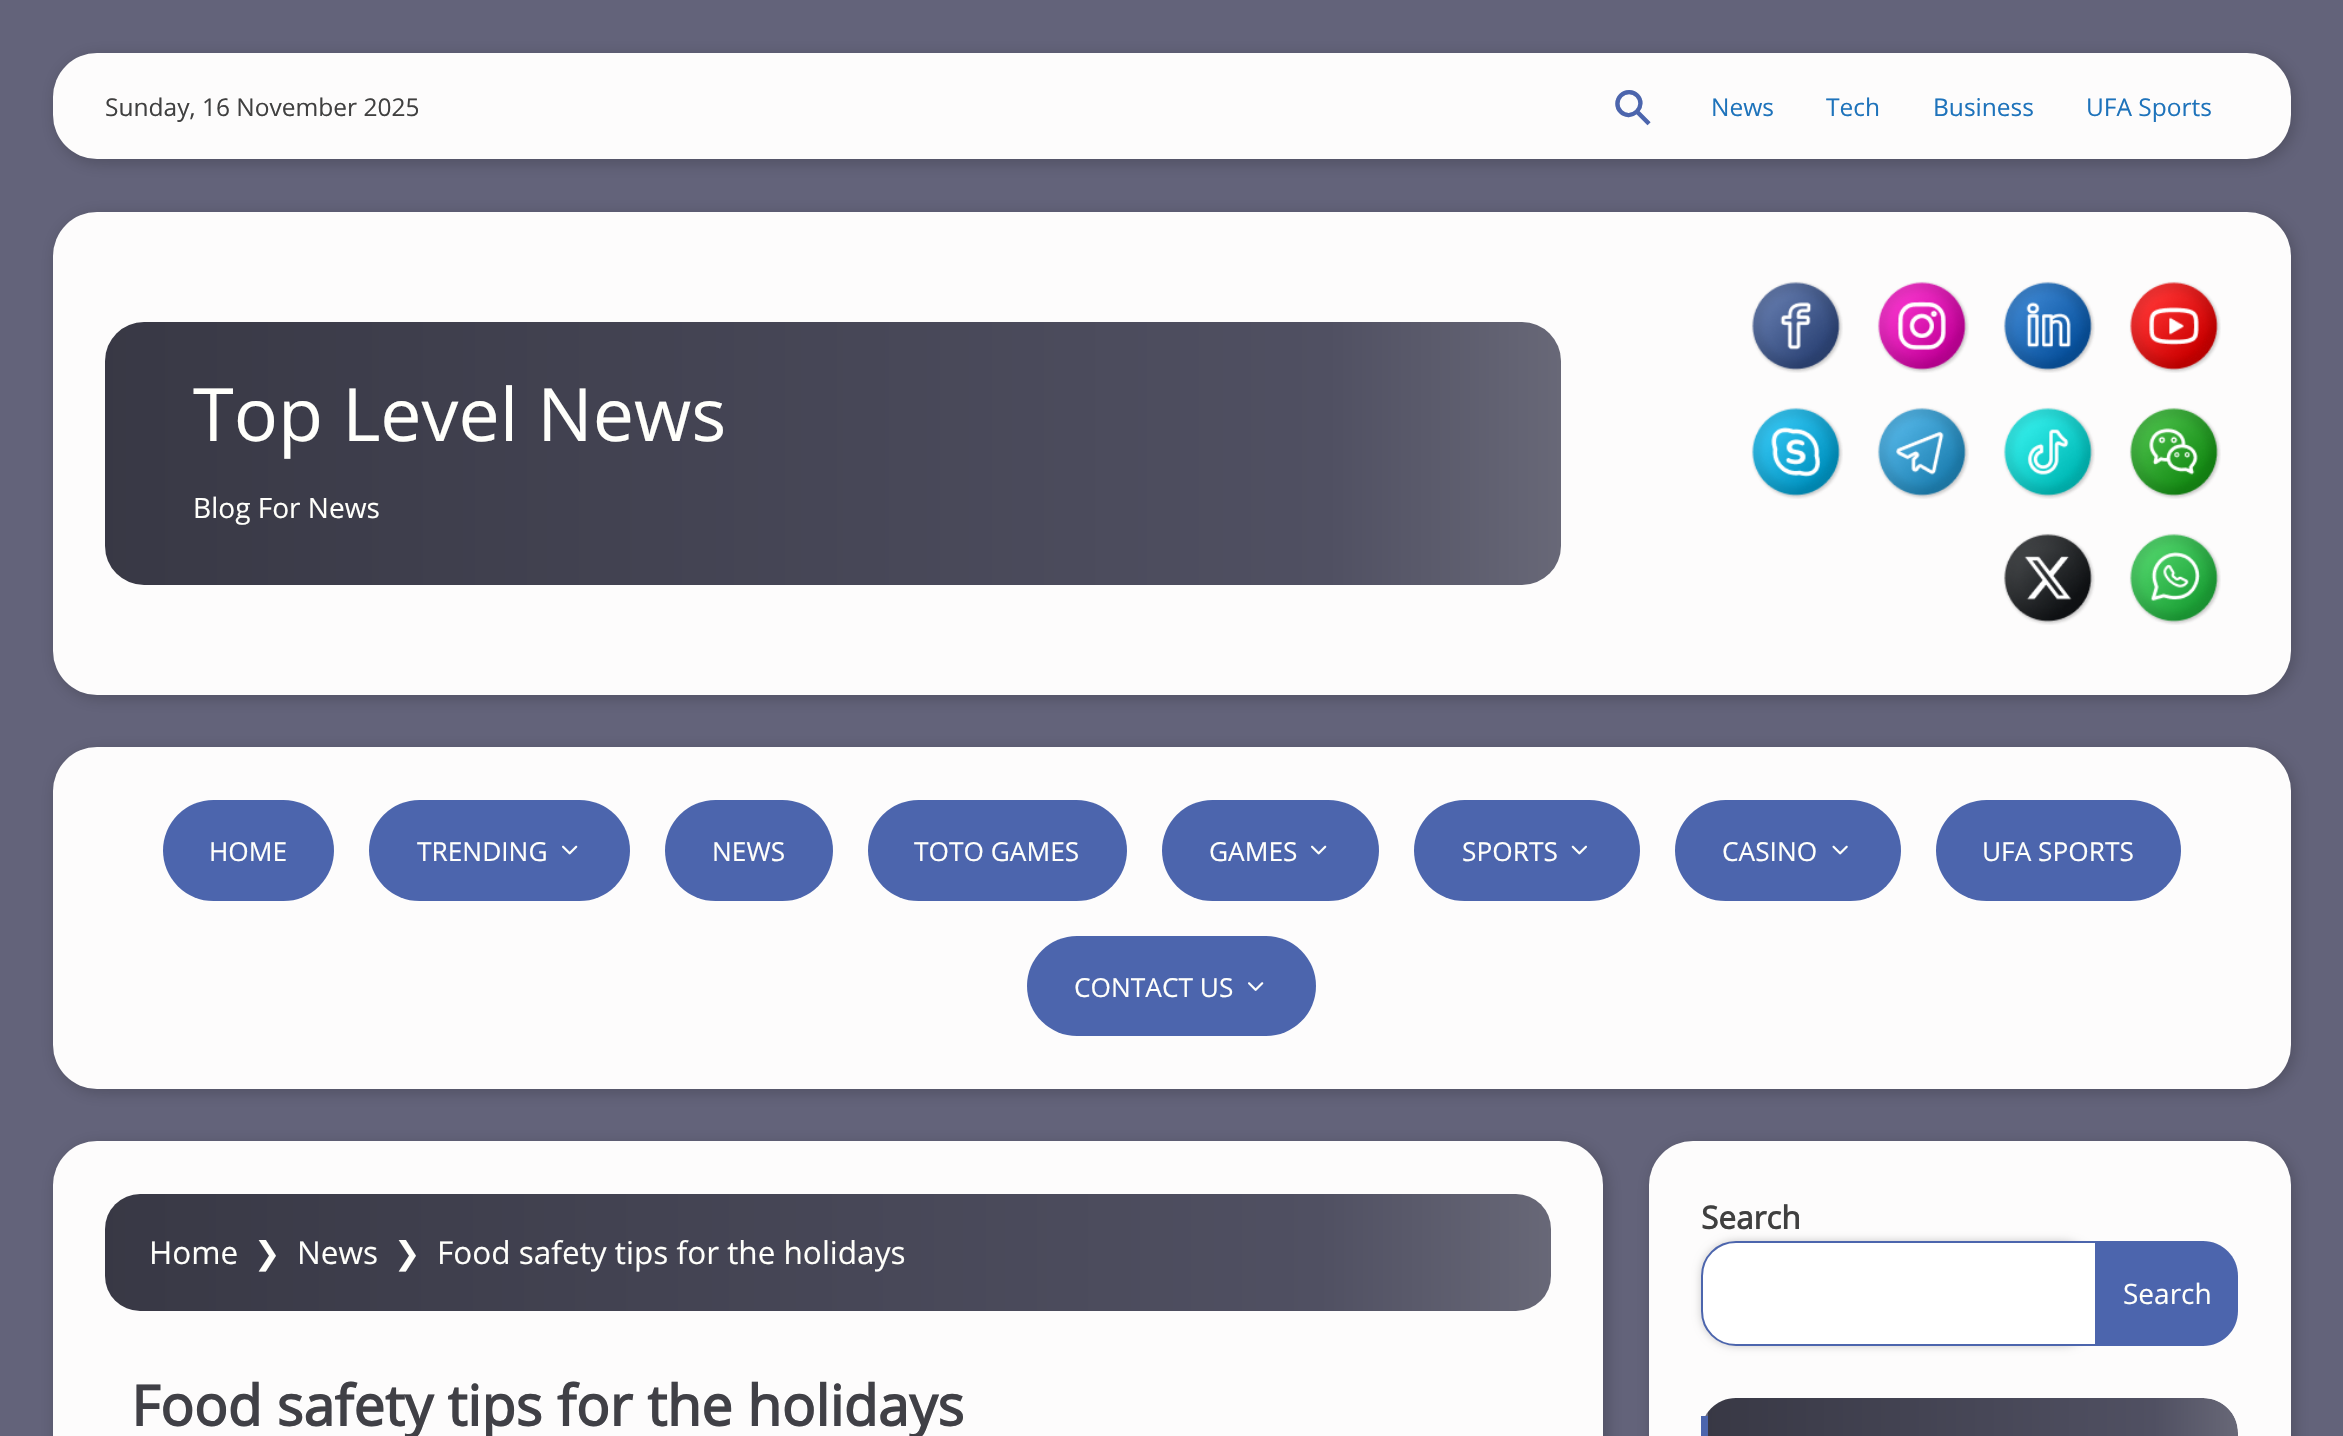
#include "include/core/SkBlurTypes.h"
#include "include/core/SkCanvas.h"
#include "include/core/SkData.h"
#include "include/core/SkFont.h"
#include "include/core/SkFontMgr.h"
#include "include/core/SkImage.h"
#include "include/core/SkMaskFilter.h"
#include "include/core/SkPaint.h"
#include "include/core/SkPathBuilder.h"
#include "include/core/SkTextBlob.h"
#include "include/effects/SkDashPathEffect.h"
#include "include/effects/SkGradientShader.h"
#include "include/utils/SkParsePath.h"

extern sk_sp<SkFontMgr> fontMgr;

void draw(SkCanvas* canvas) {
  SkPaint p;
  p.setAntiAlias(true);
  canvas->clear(SkColorSetRGB(99, 99, 122));
  p.setColor(SkColorSetARGB(51, 0, 0, 0));
  p.setMaskFilter(SkMaskFilter::MakeBlur(kNormal_SkBlurStyle, 8));
  canvas->drawRoundRect(SkRect::MakeLTRB(56, 56, 2294, 163), 44, 44, p);
  p.setMaskFilter(nullptr);
  p.setColor(SkColorSetRGB(253, 252, 252));
  canvas->drawRoundRect(SkRect::MakeLTRB(53, 53, 2291, 159), 44, 44, p);
  p.setColor(SkColorSetARGB(51, 0, 0, 0));
  p.setMaskFilter(SkMaskFilter::MakeBlur(kNormal_SkBlurStyle, 8));
  canvas->drawRoundRect(SkRect::MakeLTRB(56, 215, 2294, 698), 44, 44, p);
  p.setMaskFilter(nullptr);
  p.setColor(SkColorSetRGB(253, 252, 252));
  canvas->drawRoundRect(SkRect::MakeLTRB(53, 212, 2291, 695), 44, 44, p);
  {
    const SkColor colors[] = {SK_ColorBLACK, SkColorSetRGB(80, 80, 98), SkColorSetRGB(253, 253, 253)};
    const float stops[] = {0, 0.71f, 1};
    const SkPoint ends[] = {{-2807, 453}, {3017, 453}};
    p.setShader(SkGradientShader::MakeLinear(ends, colors, stops, 3, SkTileMode::kClamp));
    p.setAlpha(255);
  }
  canvas->drawRoundRect(SkRect::MakeLTRB(105, 322, 1561, 585), 39, 39, p);
  canvas->drawImageRect(SkImages::DeferredFromEncodedData(SkData::MakeFromFileName("images/1.png")), SkRect::MakeLTRB(1751, 281, 1843, 373), SkSamplingOptions());
  canvas->drawImageRect(SkImages::DeferredFromEncodedData(SkData::MakeFromFileName("images/2.png")), SkRect::MakeLTRB(1877, 281, 1969, 373), SkSamplingOptions());
  canvas->drawImageRect(SkImages::DeferredFromEncodedData(SkData::MakeFromFileName("images/3.png")), SkRect::MakeLTRB(2003, 281, 2095, 373), SkSamplingOptions());
  canvas->drawImageRect(SkImages::DeferredFromEncodedData(SkData::MakeFromFileName("images/4.png")), SkRect::MakeLTRB(2129, 281, 2221, 373), SkSamplingOptions());
  canvas->drawImageRect(SkImages::DeferredFromEncodedData(SkData::MakeFromFileName("images/5.png")), SkRect::MakeLTRB(1751, 407, 1843, 499), SkSamplingOptions());
  canvas->drawImageRect(SkImages::DeferredFromEncodedData(SkData::MakeFromFileName("images/6.png")), SkRect::MakeLTRB(1877, 407, 1969, 499), SkSamplingOptions());
  canvas->drawImageRect(SkImages::DeferredFromEncodedData(SkData::MakeFromFileName("images/7.png")), SkRect::MakeLTRB(2003, 407, 2095, 499), SkSamplingOptions());
  canvas->drawImageRect(SkImages::DeferredFromEncodedData(SkData::MakeFromFileName("images/8.png")), SkRect::MakeLTRB(2129, 407, 2221, 499), SkSamplingOptions());
  canvas->drawImageRect(SkImages::DeferredFromEncodedData(SkData::MakeFromFileName("images/9.png")), SkRect::MakeLTRB(2003, 533, 2095, 625), SkSamplingOptions());
  canvas->drawImageRect(SkImages::DeferredFromEncodedData(SkData::MakeFromFileName("images/10.png")), SkRect::MakeLTRB(2129, 533, 2221, 625), SkSamplingOptions());
  p.setShader(nullptr);
  p.setColor(SkColorSetARGB(51, 0, 0, 0));
  p.setMaskFilter(SkMaskFilter::MakeBlur(kNormal_SkBlurStyle, 8));
  canvas->drawRoundRect(SkRect::MakeLTRB(56, 751, 2294, 1092), 44, 44, p);
  p.setMaskFilter(nullptr);
  p.setColor(SkColorSetRGB(253, 252, 252));
  canvas->drawRoundRect(SkRect::MakeLTRB(53, 747, 2291, 1089), 44, 44, p);
  p.setColor(SkColorSetRGB(76, 101, 173));
  canvas->drawRoundRect(SkRect::MakeLTRB(163, 800, 334, 901), 50.5f, 50.5f, p);
  canvas->drawRoundRect(SkRect::MakeLTRB(369, 800, 630, 901), 50.5f, 50.5f, p);
  canvas->drawImageRect(SkImages::DeferredFromEncodedData(SkData::MakeFromFileName("images/11.png")), SkRect::MakeLTRB(562, 845, 578, 855), SkSamplingOptions());
  canvas->drawRoundRect(SkRect::MakeLTRB(665, 800, 833, 901), 50.5f, 50.5f, p);
  canvas->drawRoundRect(SkRect::MakeLTRB(868, 800, 1127, 901), 50.5f, 50.5f, p);
  canvas->drawRoundRect(SkRect::MakeLTRB(1162, 800, 1379, 901), 50.5f, 50.5f, p);
  canvas->drawImageRect(SkImages::DeferredFromEncodedData(SkData::MakeFromFileName("images/11.png")), SkRect::MakeLTRB(1311, 845, 1327, 855), SkSamplingOptions());
  canvas->drawRoundRect(SkRect::MakeLTRB(1414, 800, 1640, 901), 50.5f, 50.5f, p);
  canvas->drawImageRect(SkImages::DeferredFromEncodedData(SkData::MakeFromFileName("images/12.png")), SkRect::MakeLTRB(1571, 845, 1587, 855), SkSamplingOptions());
  canvas->drawRoundRect(SkRect::MakeLTRB(1675, 800, 1901, 901), 50.5f, 50.5f, p);
  canvas->drawImageRect(SkImages::DeferredFromEncodedData(SkData::MakeFromFileName("images/13.png")), SkRect::MakeLTRB(1832, 845, 1848, 855), SkSamplingOptions());
  canvas->drawRoundRect(SkRect::MakeLTRB(1936, 800, 2181, 901), 50.5f, 50.5f, p);
  canvas->drawRoundRect(SkRect::MakeLTRB(1027, 936, 1316, 1036), 50, 50, p);
  canvas->drawImageRect(SkImages::DeferredFromEncodedData(SkData::MakeFromFileName("images/14.png")), SkRect::MakeLTRB(1248, 982, 1264, 991), SkSamplingOptions());
  p.setColor(SkColorSetARGB(51, 0, 0, 0));
  p.setMaskFilter(SkMaskFilter::MakeBlur(kNormal_SkBlurStyle, 8));
  canvas->drawRoundRect(SkRect::MakeLTRB(56, 1145, 1607, 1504), 44, 44, p);
  p.setMaskFilter(nullptr);
  p.setColor(SkColorSetRGB(253, 252, 252));
  canvas->drawRoundRect(SkRect::MakeLTRB(53, 1141, 1603, 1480), 44, 44, p);
  {
    const SkColor colors[] = {SK_ColorBLACK, SkColorSetRGB(80, 80, 98), SkColorSetRGB(252, 252, 252)};
    const float stops[] = {0, 0.71f, 1};
    const SkPoint ends[] = {{-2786, 1252}, {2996, 1252}};
    p.setShader(SkGradientShader::MakeLinear(ends, colors, stops, 3, SkTileMode::kClamp));
    p.setAlpha(255);
  }
  canvas->drawRoundRect(SkRect::MakeLTRB(105, 1194, 1551, 1311), 35, 35, p);
  p.setShader(nullptr);
  p.setColor(SkColorSetARGB(51, 0, 0, 0));
  p.setMaskFilter(SkMaskFilter::MakeBlur(kNormal_SkBlurStyle, 8));
  canvas->drawRoundRect(SkRect::MakeLTRB(1652, 1145, 2294, 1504), 44, 44, p);
  p.setMaskFilter(nullptr);
  p.setColor(SkColorSetRGB(253, 252, 252));
  canvas->drawRoundRect(SkRect::MakeLTRB(1649, 1141, 2291, 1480), 44, 44, p);
  p.setColor(SkColorSetARGB(51, 0, 0, 0));
  p.setMaskFilter(SkMaskFilter::MakeBlur(kNormal_SkBlurStyle, 4.5f));
  canvas->drawRoundRect(SkRect::MakeLTRB(1701, 1241, 2097, 1346), 35, 35, p);
  p.setMaskFilter(nullptr);
  p.setColor(SK_ColorWHITE);
  canvas->drawPath(SkPathBuilder().moveTo(1736, 1242).lineTo(2096, 1242).lineTo(2096, 1345).lineTo(1736, 1345).cubicTo(1717, 1345, 1702, 1330, 1702, 1311).lineTo(1702, 1276).cubicTo(1702, 1257, 1717, 1242, 1736, 1242).close().detach(), p);
  p.setStyle(SkPaint::kStroke_Style);
  p.setStrokeWidth(2);
  p.setColor(SkColorSetRGB(76, 101, 173));
  canvas->drawPath(SkPathBuilder().moveTo(1736, 1242).lineTo(2096, 1242).lineTo(2096, 1345).lineTo(1736, 1345).cubicTo(1717, 1345, 1702, 1330, 1702, 1311).lineTo(1702, 1276).cubicTo(1702, 1257, 1717, 1242, 1736, 1242).close().detach(), p);
  p.setStyle(SkPaint::kFill_Style);
  canvas->drawPath(SkPathBuilder().moveTo(2097, 1241).lineTo(2203, 1241).cubicTo(2222.5f, 1241, 2238, 1256.5f, 2238, 1276).lineTo(2238, 1311).cubicTo(2238, 1330.5f, 2222.5f, 1346, 2203, 1346).lineTo(2097, 1346).close().detach(), p);
  canvas->save();
  canvas->clipPath(SkPathBuilder().moveTo(1736, 1398).lineTo(2203, 1398).cubicTo(2222.5f, 1398, 2238, 1413.5f, 2238, 1433).lineTo(2238, 1481).cubicTo(2238, 1500.5f, 2222.5f, 1516, 2203, 1516).lineTo(1736, 1516).cubicTo(1716.5f, 1516, 1701, 1500.5f, 1701, 1481).lineTo(1701, 1433).cubicTo(1701, 1413.5f, 1716.5f, 1398, 1736, 1398).close().detach(), true);
  {
    const SkColor colors[] = {SK_ColorBLACK, SkColorSetRGB(80, 80, 98), SkColorSetRGB(253, 252, 252)};
    const float stops[] = {0, 0.71f, 1};
    const SkPoint ends[] = {{117, 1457}, {2238, 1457}};
    p.setShader(SkGradientShader::MakeLinear(ends, colors, stops, 3, SkTileMode::kClamp));
    p.setAlpha(255);
  }
  canvas->drawRect(SkRect::MakeLTRB(1705, 1412, 1708, 1416), p);
  {
    const SkColor colors[] = {SK_ColorBLACK, SkColorSetRGB(80, 80, 98), SkColorSetRGB(253, 252, 252)};
    const float stops[] = {0, 0.71f, 1};
    const SkPoint ends[] = {{648, 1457}, {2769, 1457}};
    p.setShader(SkGradientShader::MakeLinear(ends, colors, stops, 3, SkTileMode::kClamp));
    p.setAlpha(255);
  }
  canvas->drawPath(SkPathBuilder().moveTo(1708, 1398).lineTo(2203, 1398).cubicTo(2222.5f, 1398, 2238, 1413.5f, 2238, 1433).lineTo(2238, 1436).cubicTo(2238, 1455.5f, 2222.5f, 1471, 2203, 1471).lineTo(1708, 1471).close().detach(), p);
  canvas->restore();
  p.setShader(nullptr);
  p.setColor(SkColorSetRGB(76, 101, 173));
  canvas->drawRect(SkRect::MakeLTRB(1701, 1416, 1708, 1436), p);
  SkFont font1(fontMgr->matchFamilyStyle("Open Sans", SkFontStyle::Normal()), 24.5f);
  font1.setSubpixel(true);
  p.setColor(SkColorSetRGB(64, 64, 64));
  canvas->drawString("Sunday, 16 November 2025", 105, 116, font1, p);
  SkFont font2(fontMgr->matchFamilyStyle("DejaVu Sans", SkFontStyle::Normal()), 49);
  font2.setSubpixel(true);
  p.setColor(SkColorSetRGB(76, 101, 173));
  canvas->save();
  canvas->rotate(-45, 1632, 132);
  canvas->drawString("⚲", 1632, 132, font2, p);
  canvas->restore();
  p.setColor(SkColorSetRGB(30, 115, 187));
  canvas->drawString("News", 1711, 116, font1, p);
  canvas->drawString("Tech", 1826, 116, font1, p);
  canvas->drawString("Business", 1933, 116, font1, p);
  canvas->drawString("UFA Sports", 2086, 116, font1, p);
  SkFont font3(fontMgr->matchFamilyStyle("Open Sans", SkFontStyle::Normal()), 73.5f);
  font3.setSubpixel(true);
  p.setColor(SkColorSetRGB(255, 255, 251));
  canvas->drawString("Top Level News", 193, 441, font3, p);
  SkFont font4(fontMgr->matchFamilyStyle("Open Sans", SkFontStyle::Normal()), 28);
  font4.setSubpixel(true);
  canvas->drawString("Blog For News", 193, 518, font4, p);
  SkFont font5(fontMgr->matchFamilyStyle("Open Sans", SkFontStyle::Normal()), 26.25f);
  font5.setSubpixel(true);
  canvas->drawString("HOME", 209, 861, font5, p);
  canvas->drawString("TRENDING", 417, 861, font5, p);
  canvas->drawString("NEWS", 712, 861, font5, p);
  canvas->drawString("TOTO GAMES", 914, 861, font5, p);
  canvas->drawString("GAMES", 1209, 861, font5, p);
  canvas->drawString("SPORTS", 1462, 861, font5, p);
  canvas->drawString("CASINO", 1722, 861, font5, p);
  canvas->drawString("UFA SPORTS", 1982, 861, font5, p);
  canvas->drawString("CONTACT US", 1074, 997, font5, p);
  SkFont font6(fontMgr->matchFamilyStyle("Open Sans", SkFontStyle::Normal()), 31.5f);
  font6.setSubpixel(true);
  canvas->drawString("Home", 149, 1264, font6, p);
  SkFont font7(fontMgr->matchFamilyStyle("DejaVu Sans", SkFontStyle::Normal()), 31.5f);
  font7.setSubpixel(true);
  canvas->drawString("❯", 254, 1264, font7, p);
  canvas->drawString("News", 297, 1264, font6, p);
  canvas->drawString("❯", 394, 1264, font7, p);
  canvas->drawString("Food safety tips for the holidays", 437, 1264, font6, p);
  SkFont font8(fontMgr->matchFamilyStyle("Open Sans", SkFontStyle::Bold()), 56);
  font8.setSubpixel(true);
  p.setColor(SkColorSetRGB(64, 64, 70));
  canvas->drawString("Food safety tips for the holidays", 131, 1426, font8, p);
  SkFont font9(fontMgr->matchFamilyStyle("Open Sans", SkFontStyle::Bold()), 31.5f);
  font9.setSubpixel(true);
  p.setColor(SkColorSetRGB(64, 64, 64));
  canvas->drawString("Search", 1701, 1229, font9, p);
  p.setColor(SkColorSetRGB(255, 255, 251));
  canvas->drawString("Search", 2123, 1304, font4, p);
}
